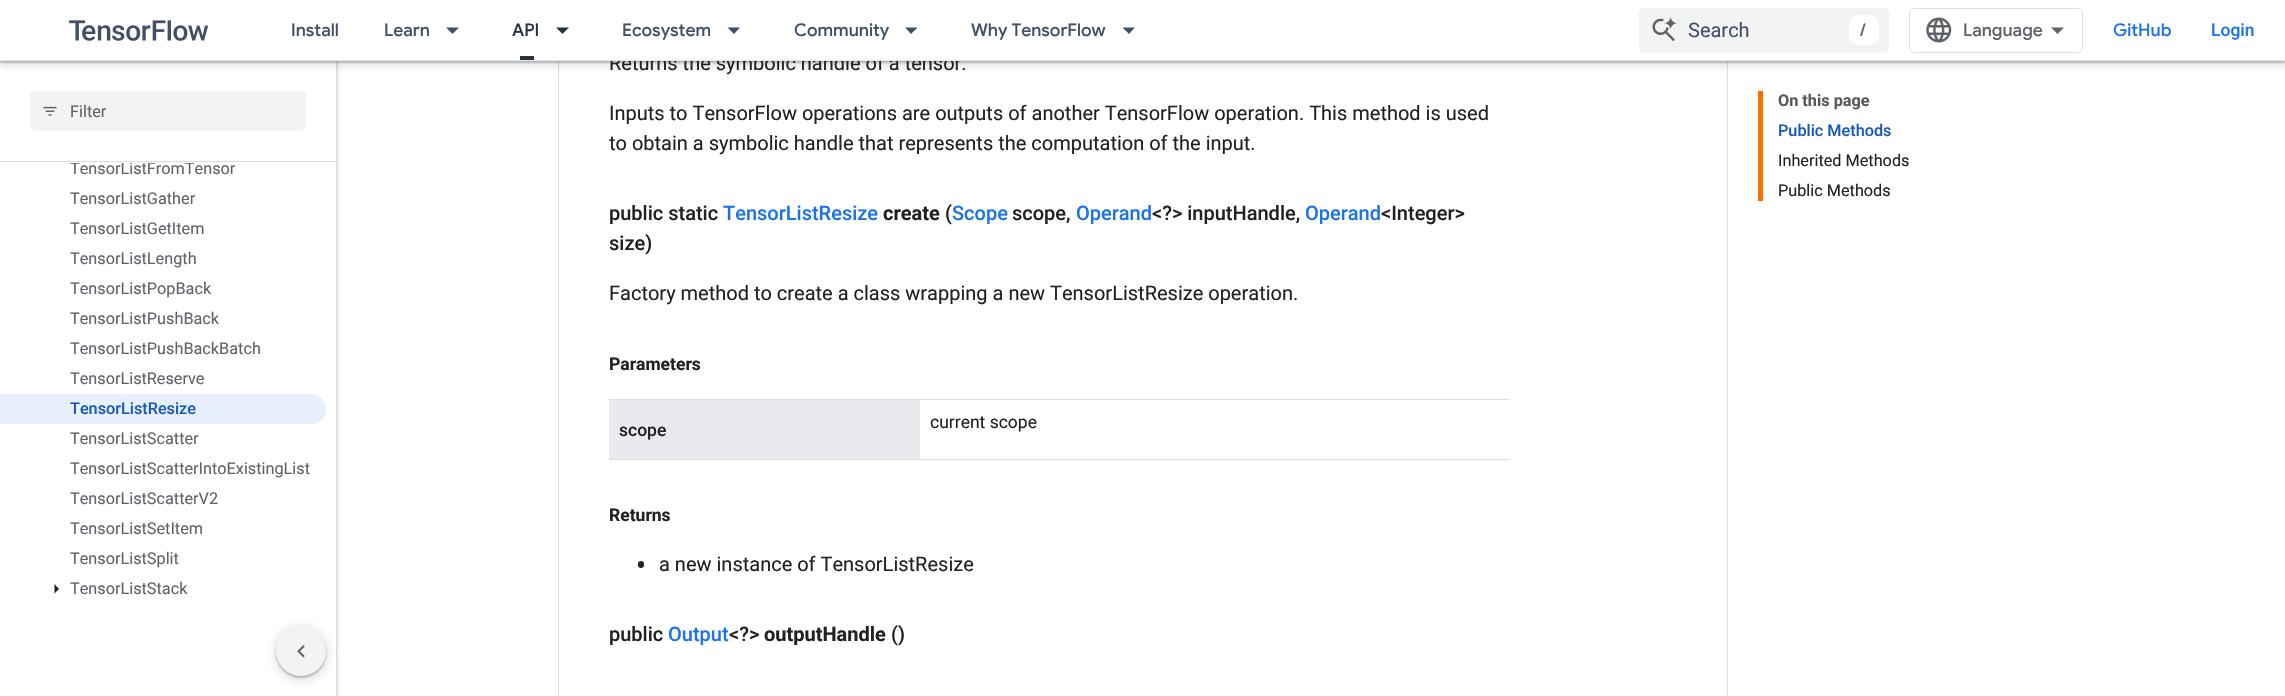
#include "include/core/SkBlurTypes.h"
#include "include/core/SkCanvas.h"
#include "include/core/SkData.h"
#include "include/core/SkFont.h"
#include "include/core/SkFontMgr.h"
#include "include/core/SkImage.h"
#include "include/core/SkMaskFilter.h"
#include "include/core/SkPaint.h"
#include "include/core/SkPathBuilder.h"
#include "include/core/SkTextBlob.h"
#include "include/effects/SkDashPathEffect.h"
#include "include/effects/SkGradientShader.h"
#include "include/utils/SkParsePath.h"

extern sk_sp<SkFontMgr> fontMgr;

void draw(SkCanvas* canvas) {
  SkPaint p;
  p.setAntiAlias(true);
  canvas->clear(SK_ColorWHITE);
  canvas->save();
  canvas->clipRect(SkRect::MakeLTRB(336, 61, 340, 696));
  p.setColor(SkColorSetARGB(38, 60, 64, 67));
  p.setMaskFilter(SkMaskFilter::MakeBlur(kNormal_SkBlurStyle, 2));
  canvas->drawRect(SkRect::MakeLTRB(-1, 0, 338, 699), p);
  p.setMaskFilter(nullptr);
  canvas->restore();
  canvas->save();
  canvas->clipRect(SkRect::MakeLTRB(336, 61, 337, 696));
  p.setColor(SkColorSetARGB(77, 60, 64, 67));
  p.setMaskFilter(SkMaskFilter::MakeBlur(kNormal_SkBlurStyle, 1));
  canvas->drawRect(SkRect::MakeLTRB(0, 1, 336, 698), p);
  p.setMaskFilter(nullptr);
  canvas->restore();
  p.setStyle(SkPaint::kStroke_Style);
  p.setStrokeWidth(1);
  p.setColor(SkColorSetRGB(218, 220, 224));
  canvas->drawRect(SkRect::MakeLTRB(558.5f, -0.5f, 1727.5f, 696.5f), p);
  p.setStyle(SkPaint::kFill_Style);
  p.setColor(SkColorSetARGB(38, 60, 64, 67));
  p.setMaskFilter(SkMaskFilter::MakeBlur(kNormal_SkBlurStyle, 4));
  canvas->drawRect(SkRect::MakeLTRB(-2, -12, 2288, 66), p);
  p.setMaskFilter(nullptr);
  p.setColor(SkColorSetARGB(77, 60, 64, 67));
  p.setMaskFilter(SkMaskFilter::MakeBlur(kNormal_SkBlurStyle, 1));
  canvas->drawRect(SkRect::MakeLTRB(0, -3, 2285, 63), p);
  p.setMaskFilter(nullptr);
  p.setColor(SkColorSetRGB(218, 220, 224));
  canvas->drawRect(SkRect::MakeLTRB(0, 161, 336, 162), p);
  p.setColor(SkColorSetRGB(241, 243, 244));
  canvas->drawRoundRect(SkRect::MakeLTRB(30, 91, 306, 131), 5, 5, p);
  canvas->drawImageRect(SkImages::DeferredFromEncodedData(SkData::MakeFromFileName("images/4.png")), SkRect::MakeLTRB(43, 106, 57, 116), SkSamplingOptions());
  p.setColor(SkColorSetRGB(232, 240, 254));
  canvas->drawPath(SkPathBuilder().moveTo(0, 394).lineTo(311, 394).cubicTo(319.5f, 394, 326, 400.5f, 326, 409).cubicTo(326, 417.5f, 319.5f, 424, 311, 424).lineTo(0, 424).close().detach(), p);
  p.setColor(SkColorSetRGB(32, 33, 36));
  canvas->drawPath(SkPathBuilder().moveTo(54.5f, 593.5f).lineTo(54.5f, 584).lineTo(59, 589).close().detach(), p);
  p.setColor(SkColorSetRGB(218, 220, 224));
  canvas->drawRect(SkRect::MakeLTRB(609, 399, 1509, 400), p);
  canvas->drawRect(SkRect::MakeLTRB(609, 459, 1509, 460), p);
  p.setColor(SkColorSetRGB(232, 234, 237));
  canvas->drawRect(SkRect::MakeLTRB(609, 400, 920, 459), p);
  p.setColor(SkColorSetRGB(32, 33, 36));
  canvas->drawRoundRect(SkRect::MakeLTRB(638, 561, 644, 568), 3, 3, p);
  p.setColor(SkColorSetRGB(255, 111, 0));
  canvas->drawRect(SkRect::MakeLTRB(1758, 91, 1763, 201), p);
  p.setColor(SkColorSetARGB(38, 60, 64, 67));
  p.setMaskFilter(SkMaskFilter::MakeBlur(kNormal_SkBlurStyle, 4));
  canvas->drawRoundRect(SkRect::MakeLTRB(274, 626, 329, 681), 27.5f, 27.5f, p);
  p.setMaskFilter(nullptr);
  p.setColor(SkColorSetARGB(77, 60, 64, 67));
  p.setMaskFilter(SkMaskFilter::MakeBlur(kNormal_SkBlurStyle, 1));
  canvas->drawRoundRect(SkRect::MakeLTRB(276, 628, 326, 678), 25, 25, p);
  p.setMaskFilter(nullptr);
  p.setColor(SkColorSetRGB(241, 243, 244));
  canvas->drawCircle(301, 651, 25, p);
  canvas->drawImageRect(SkImages::DeferredFromEncodedData(SkData::MakeFromFileName("images/5.png")), SkRect::MakeLTRB(297, 645, 305, 658), SkSamplingOptions());
  SkFont font1(fontMgr->matchFamilyStyle("Roboto", SkFontStyle::Normal()), 16.25f);
  font1.setSubpixel(true);
  p.setColor(SkColorSetRGB(95, 99, 104));
  canvas->drawString("Filter", 70, 117, font1, p);
  canvas->drawString("TensorListFromTensor", 70, 174, font1, p);
  p.setColor(SK_ColorWHITE);
  canvas->drawRect(SkRect::MakeLTRB(70, 162, 195, 163), p);
  p.setColor(SkColorSetRGB(95, 99, 104));
  canvas->drawString("TensorListGather", 70, 204, font1, p);
  canvas->drawString("TensorListGetItem", 70, 234, font1, p);
  canvas->drawString("TensorListLength", 70, 264, font1, p);
  canvas->drawString("TensorListPopBack", 70, 294, font1, p);
  canvas->drawString("TensorListPushBack", 70, 324, font1, p);
  canvas->drawString("TensorListPushBackBatch", 70, 354, font1, p);
  canvas->drawString("TensorListReserve", 70, 384, font1, p);
  SkFont font2(fontMgr->matchFamilyStyle("Roboto", SkFontStyle(500, SkFontStyle::kNormal_Width, SkFontStyle::kUpright_Slant)), 16.25f);
  font2.setSubpixel(true);
  p.setColor(SkColorSetRGB(24, 90, 188));
  canvas->drawString("TensorListResize", 70, 414, font2, p);
  p.setColor(SkColorSetRGB(95, 99, 104));
  canvas->drawString("TensorListScatter", 70, 444, font1, p);
  canvas->drawString("TensorListScatterIntoExistingList", 70, 474, font1, p);
  canvas->drawString("TensorListScatterV2", 70, 504, font1, p);
  canvas->drawString("TensorListSetItem", 70, 534, font1, p);
  canvas->drawString("TensorListSplit", 70, 564, font1, p);
  canvas->drawString("TensorListStack", 70, 594, font1, p);
  SkFont font3(fontMgr->matchFamilyStyle("Roboto", SkFontStyle::Normal()), 20);
  font3.setSubpixel(true);
  p.setColor(SkColorSetRGB(32, 33, 36));
  canvas->drawString("Returns the symbolic handle of a tensor.", 609, 70, font3, p);
  p.setColor(SK_ColorWHITE);
  canvas->drawRect(SkRect::MakeLTRB(0, 0, 2285, 60), p);
  p.setColor(SkColorSetRGB(241, 243, 244));
  canvas->drawRoundRect(SkRect::MakeLTRB(1639, 8, 1889, 53), 5, 5, p);
  p.setColor(SK_ColorWHITE);
  canvas->drawRoundRect(SkRect::MakeLTRB(1849, 15, 1879, 45), 10, 10, p);
  SkFont font4(fontMgr->matchFamilyStyle("Google Sans", SkFontStyle(500, SkFontStyle::kNormal_Width, SkFontStyle::kUpright_Slant)), 17.5f);
  font4.setSubpixel(true);
  p.setColor(SkColorSetRGB(95, 99, 104));
  canvas->drawString("/", 1860, 36, font4, p);
  canvas->drawImageRect(SkImages::DeferredFromEncodedData(SkData::MakeFromFileName("images/2.png")), SkRect::MakeLTRB(1652, 16, 1677, 42), SkSamplingOptions());
  p.setColor(SkColorSetRGB(66, 80, 102));
  canvas->drawString("Search", 1688, 37, font3, p);
  canvas->drawString("Why TensorFlow", 971, 36, font4, p);
  canvas->drawString("Community", 794, 36, font4, p);
  canvas->drawString("Ecosystem", 622, 36, font4, p);
  p.setColor(SkColorSetRGB(41, 50, 65));
  canvas->drawRect(SkRect::MakeLTRB(520, 56, 534, 60), p);
  canvas->drawString("API", 512, 36, font4, p);
  p.setColor(SkColorSetRGB(66, 80, 102));
  canvas->drawString("Learn", 384, 36, font4, p);
  canvas->drawPath(SkPathBuilder().moveTo(1122.5f, 27.5f).lineTo(1135, 27.5f).lineTo(1129, 34).close().detach(), p);
  canvas->drawPath(SkPathBuilder().moveTo(905, 27.5f).lineTo(917.5f, 27.5f).lineTo(911, 34).close().detach(), p);
  canvas->drawPath(SkPathBuilder().moveTo(727.5f, 27.5f).lineTo(740, 27.5f).lineTo(734, 34).close().detach(), p);
  p.setColor(SkColorSetRGB(41, 50, 65));
  canvas->drawPath(SkPathBuilder().moveTo(556, 27.5f).lineTo(569, 27.5f).lineTo(562.5f, 34).close().detach(), p);
  p.setColor(SkColorSetRGB(66, 80, 102));
  canvas->drawPath(SkPathBuilder().moveTo(446, 27.5f).lineTo(459, 27.5f).lineTo(452.5f, 34).close().detach(), p);
  canvas->drawString("Install", 291, 36, font4, p);
  p.setStyle(SkPaint::kStroke_Style);
  p.setColor(SkColorSetRGB(218, 220, 224));
  canvas->drawRoundRect(SkRect::MakeLTRB(1909.5f, 8.5f, 2082.5f, 52.5f), 4.5f, 4.5f, p);
  p.setStyle(SkPaint::kFill_Style);
  p.setColor(SkColorSetRGB(95, 99, 104));
  canvas->drawPath(SkPathBuilder().moveTo(2057.5f, 34).lineTo(2051, 27.5f).lineTo(2064, 27.5f).close().detach(), p);
  canvas->drawString("Language", 1963, 36, font4, p);
  canvas->drawImageRect(SkImages::DeferredFromEncodedData(SkData::MakeFromFileName("images/3.png")), SkRect::MakeLTRB(1926, 17, 1952, 43), SkSamplingOptions());
  SkFont font5(fontMgr->matchFamilyStyle("Roboto", SkFontStyle(500, SkFontStyle::kNormal_Width, SkFontStyle::kUpright_Slant)), 17.5f);
  font5.setSubpixel(true);
  p.setColor(SkColorSetRGB(26, 115, 232));
  canvas->drawString("Login", 2211, 36, font5, p);
  canvas->drawString("GitHub", 2113, 36, font4, p);
  canvas->drawImageRect(SkImages::DeferredFromEncodedData(SkData::MakeFromFileName("images/1.png")), SkRect::MakeLTRB(69, 20, 209, 41), SkSamplingOptions());
  p.setColor(SkColorSetRGB(230, 230, 230));
  canvas->drawRect(SkRect::MakeLTRB(0, 60, 2285, 61), p);
  p.setColor(SkColorSetRGB(32, 33, 36));
  canvas->drawString("Inputs to TensorFlow operations are outputs of another TensorFlow operation. This method is used", 609, 120, font3, p);
  canvas->drawString("to obtain a symbolic handle that represents the computation of the input.", 609, 150, font3, p);
  SkFont font6(fontMgr->matchFamilyStyle("Roboto", SkFontStyle(500, SkFontStyle::kNormal_Width, SkFontStyle::kUpright_Slant)), 20);
  font6.setSubpixel(true);
  canvas->drawString("public static", 609, 220, font6, p);
  p.setColor(SkColorSetRGB(26, 115, 232));
  canvas->drawString("TensorListResize", 723, 220, font6, p);
  SkFont font7(fontMgr->matchFamilyStyle("Roboto", SkFontStyle::Bold()), 20);
  font7.setSubpixel(true);
  p.setColor(SkColorSetRGB(32, 33, 36));
  canvas->drawString("create", 883, 220, font7, p);
  canvas->drawString("(", 945, 220, font6, p);
  p.setColor(SkColorSetRGB(26, 115, 232));
  canvas->drawString("Scope", 952, 220, font6, p);
  p.setColor(SkColorSetRGB(32, 33, 36));
  canvas->drawString("scope,", 1012, 220, font6, p);
  p.setColor(SkColorSetRGB(26, 115, 232));
  canvas->drawString("Operand", 1076, 220, font6, p);
  p.setColor(SkColorSetRGB(32, 33, 36));
  canvas->drawString("<?> inputHandle,", 1152, 220, font6, p);
  p.setColor(SkColorSetRGB(26, 115, 232));
  canvas->drawString("Operand", 1305, 220, font6, p);
  p.setColor(SkColorSetRGB(32, 33, 36));
  canvas->drawString("<Integer>", 1381, 220, font6, p);
  canvas->drawString("size)", 609, 250, font6, p);
  canvas->drawString("Factory method to create a class wrapping a new TensorListResize operation.", 609, 300, font3, p);
  SkFont font8(fontMgr->matchFamilyStyle("Roboto", SkFontStyle::Bold()), 17.5f);
  font8.setSubpixel(true);
  canvas->drawString("Parameters", 609, 370, font8, p);
  canvas->drawString("scope", 619, 436, font5, p);
  SkFont font9(fontMgr->matchFamilyStyle("Roboto", SkFontStyle::Normal()), 17.5f);
  font9.setSubpixel(true);
  canvas->drawString("current scope", 930, 428, font9, p);
  canvas->drawString("Returns", 609, 521, font8, p);
  canvas->drawString("a new instance of TensorListResize", 659, 571, font3, p);
  canvas->drawString("public", 609, 641, font6, p);
  p.setColor(SkColorSetRGB(26, 115, 232));
  canvas->drawString("Output", 668, 641, font6, p);
  p.setColor(SkColorSetRGB(32, 33, 36));
  canvas->drawString("<?>", 729, 641, font6, p);
  canvas->drawString("outputHandle", 764, 641, font7, p);
  canvas->drawString("()", 891, 641, font6, p);
  SkFont font10(fontMgr->matchFamilyStyle("Roboto", SkFontStyle::Bold()), 16.25f);
  font10.setSubpixel(true);
  p.setColor(SkColorSetRGB(89, 89, 89));
  canvas->drawString("On this page", 1778, 106, font10, p);
  p.setColor(SkColorSetRGB(24, 90, 188));
  canvas->drawString("Public Methods", 1778, 136, font2, p);
  p.setColor(SkColorSetRGB(32, 33, 36));
  canvas->drawString("Inherited Methods", 1778, 166, font1, p);
  canvas->drawString("Public Methods", 1778, 196, font1, p);
}
